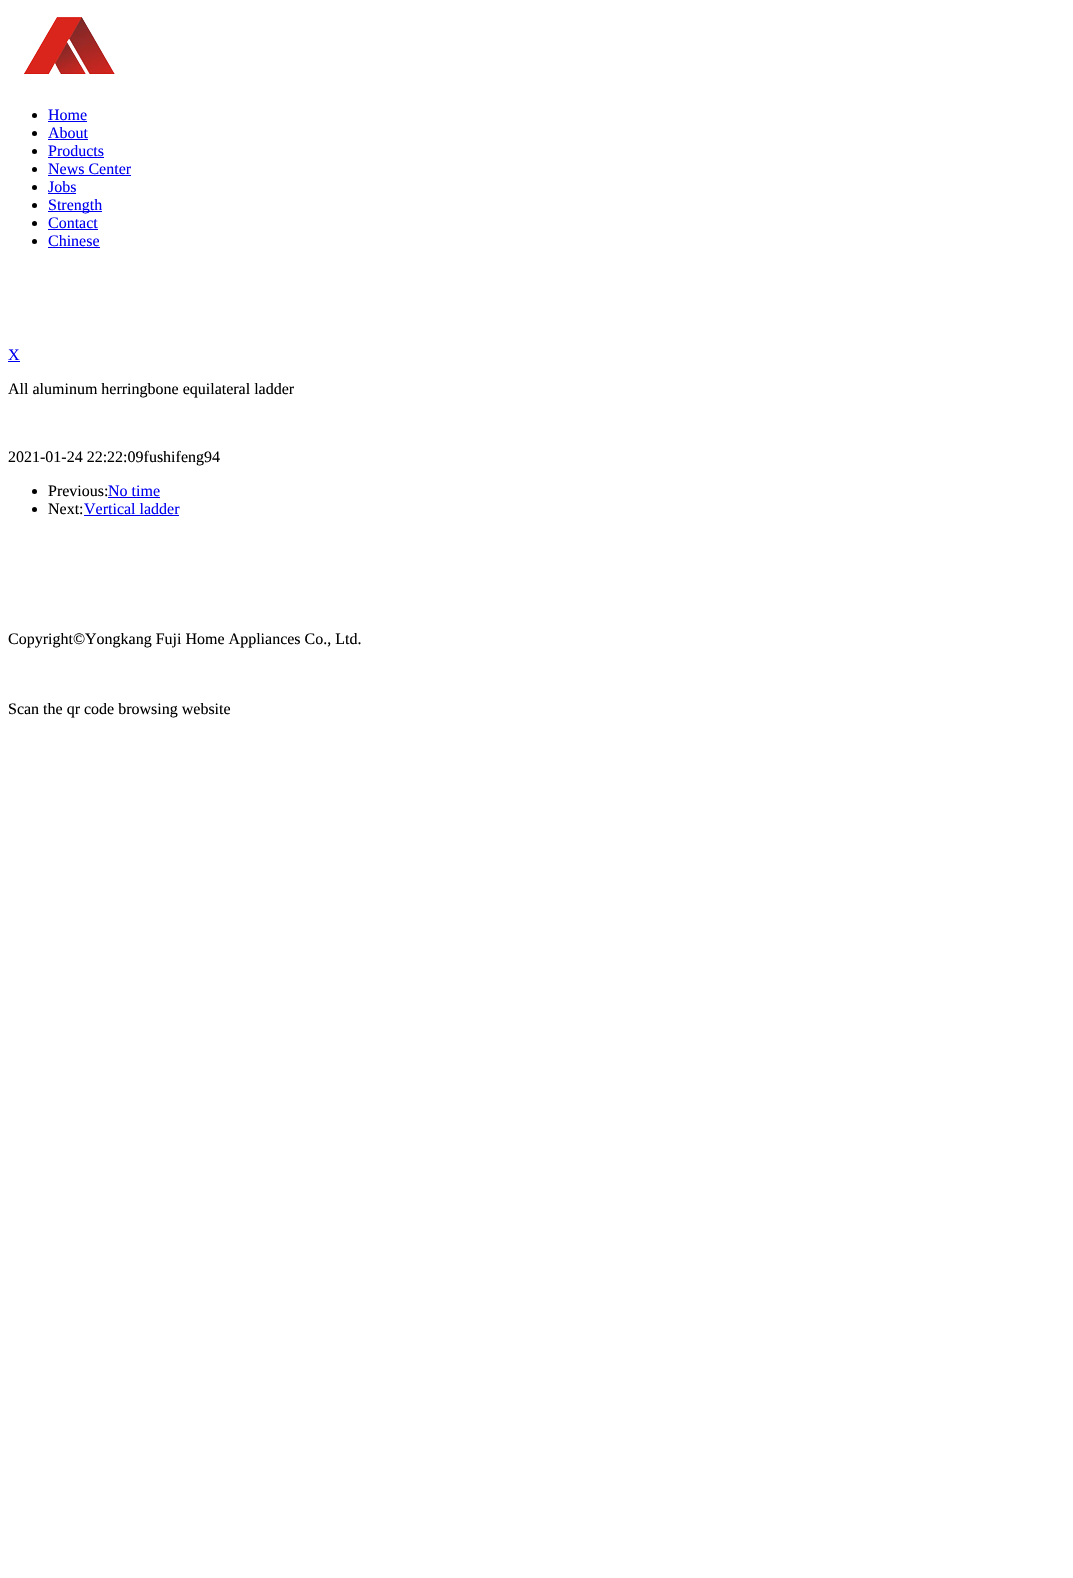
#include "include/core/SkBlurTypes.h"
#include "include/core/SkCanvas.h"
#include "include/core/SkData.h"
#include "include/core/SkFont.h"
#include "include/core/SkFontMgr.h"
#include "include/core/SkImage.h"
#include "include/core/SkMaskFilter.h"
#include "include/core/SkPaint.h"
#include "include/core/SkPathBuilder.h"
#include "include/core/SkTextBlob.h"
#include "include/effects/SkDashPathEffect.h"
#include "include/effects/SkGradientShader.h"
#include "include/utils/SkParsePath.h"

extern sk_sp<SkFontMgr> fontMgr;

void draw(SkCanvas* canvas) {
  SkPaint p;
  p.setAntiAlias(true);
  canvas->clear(SK_ColorWHITE);
  canvas->drawImageRect(SkImages::DeferredFromEncodedData(SkData::MakeFromFileName("images/1.png")), SkRect::MakeLTRB(24, 17, 115, 74), SkSamplingOptions());
  p.setColor(SK_ColorBLACK);
  canvas->drawCircle(34.5f, 115.5f, 2.5f, p);
  p.setColor(SkColorSetRGB(0, 0, 238));
  canvas->drawRect(SkRect::MakeLTRB(48, 121, 87, 122), p);
  p.setColor(SK_ColorBLACK);
  canvas->drawCircle(34.5f, 133.5f, 2.5f, p);
  p.setColor(SkColorSetRGB(0, 0, 238));
  canvas->drawRect(SkRect::MakeLTRB(48, 139, 88, 140), p);
  p.setColor(SK_ColorBLACK);
  canvas->drawCircle(34.5f, 151.5f, 2.5f, p);
  p.setColor(SkColorSetRGB(0, 0, 238));
  canvas->drawRect(SkRect::MakeLTRB(48, 157, 104, 158), p);
  p.setColor(SK_ColorBLACK);
  canvas->drawCircle(34.5f, 169.5f, 2.5f, p);
  p.setColor(SkColorSetRGB(0, 0, 238));
  canvas->drawRect(SkRect::MakeLTRB(48, 175, 131, 176), p);
  p.setColor(SK_ColorBLACK);
  canvas->drawCircle(34.5f, 187.5f, 2.5f, p);
  p.setColor(SkColorSetRGB(0, 0, 238));
  canvas->drawRect(SkRect::MakeLTRB(48, 193, 76, 194), p);
  p.setColor(SK_ColorBLACK);
  canvas->drawCircle(34.5f, 205.5f, 2.5f, p);
  p.setColor(SkColorSetRGB(0, 0, 238));
  canvas->drawRect(SkRect::MakeLTRB(48, 211, 102, 212), p);
  p.setColor(SK_ColorBLACK);
  canvas->drawCircle(34.5f, 223.5f, 2.5f, p);
  p.setColor(SkColorSetRGB(0, 0, 238));
  canvas->drawRect(SkRect::MakeLTRB(48, 229, 98, 230), p);
  p.setColor(SK_ColorBLACK);
  canvas->drawCircle(34.5f, 241.5f, 2.5f, p);
  p.setColor(SkColorSetRGB(0, 0, 238));
  canvas->drawRect(SkRect::MakeLTRB(48, 247, 100, 248), p);
  canvas->drawRect(SkRect::MakeLTRB(8, 361, 20, 362), p);
  p.setColor(SK_ColorBLACK);
  canvas->drawCircle(34.5f, 491.5f, 2.5f, p);
  p.setColor(SkColorSetRGB(0, 0, 238));
  canvas->drawRect(SkRect::MakeLTRB(108, 497, 160, 498), p);
  p.setColor(SK_ColorBLACK);
  canvas->drawCircle(34.5f, 509.5f, 2.5f, p);
  p.setColor(SkColorSetRGB(0, 0, 238));
  canvas->drawRect(SkRect::MakeLTRB(84, 515, 179, 516), p);
  SkFont font1(fontMgr->matchFamilyStyle("Liberation Serif", SkFontStyle::Normal()), 16);
  font1.setSubpixel(true);
  canvas->drawString("Home", 48, 120, font1, p);
  canvas->drawString("About", 48, 138, font1, p);
  canvas->drawString("Products", 48, 156, font1, p);
  canvas->drawString("News Center", 48, 174, font1, p);
  canvas->drawString("Jobs", 48, 192, font1, p);
  canvas->drawString("Strength", 48, 210, font1, p);
  canvas->drawString("Contact", 48, 228, font1, p);
  canvas->drawString("Chinese", 48, 246, font1, p);
  canvas->drawString("X", 8, 360, font1, p);
  p.setColor(SK_ColorBLACK);
  canvas->drawString("All aluminum herringbone equilateral ladder", 8, 394, font1, p);
  canvas->drawString("2021-01-24 22:22:09fushifeng94", 8, 462, font1, p);
  canvas->drawString("Previous:", 48, 496, font1, p);
  p.setColor(SkColorSetRGB(0, 0, 238));
  canvas->drawString("No time", 108, 496, font1, p);
  p.setColor(SK_ColorBLACK);
  canvas->drawString("Next:", 48, 514, font1, p);
  p.setColor(SkColorSetRGB(0, 0, 238));
  canvas->drawString("Vertical ladder", 84, 514, font1, p);
  p.setColor(SK_ColorBLACK);
  canvas->drawString("Copyright©Yongkang Fuji Home Appliances Co., Ltd.", 8, 644, font1, p);
  canvas->drawString("Scan the qr code browsing website", 8, 714, font1, p);
}
